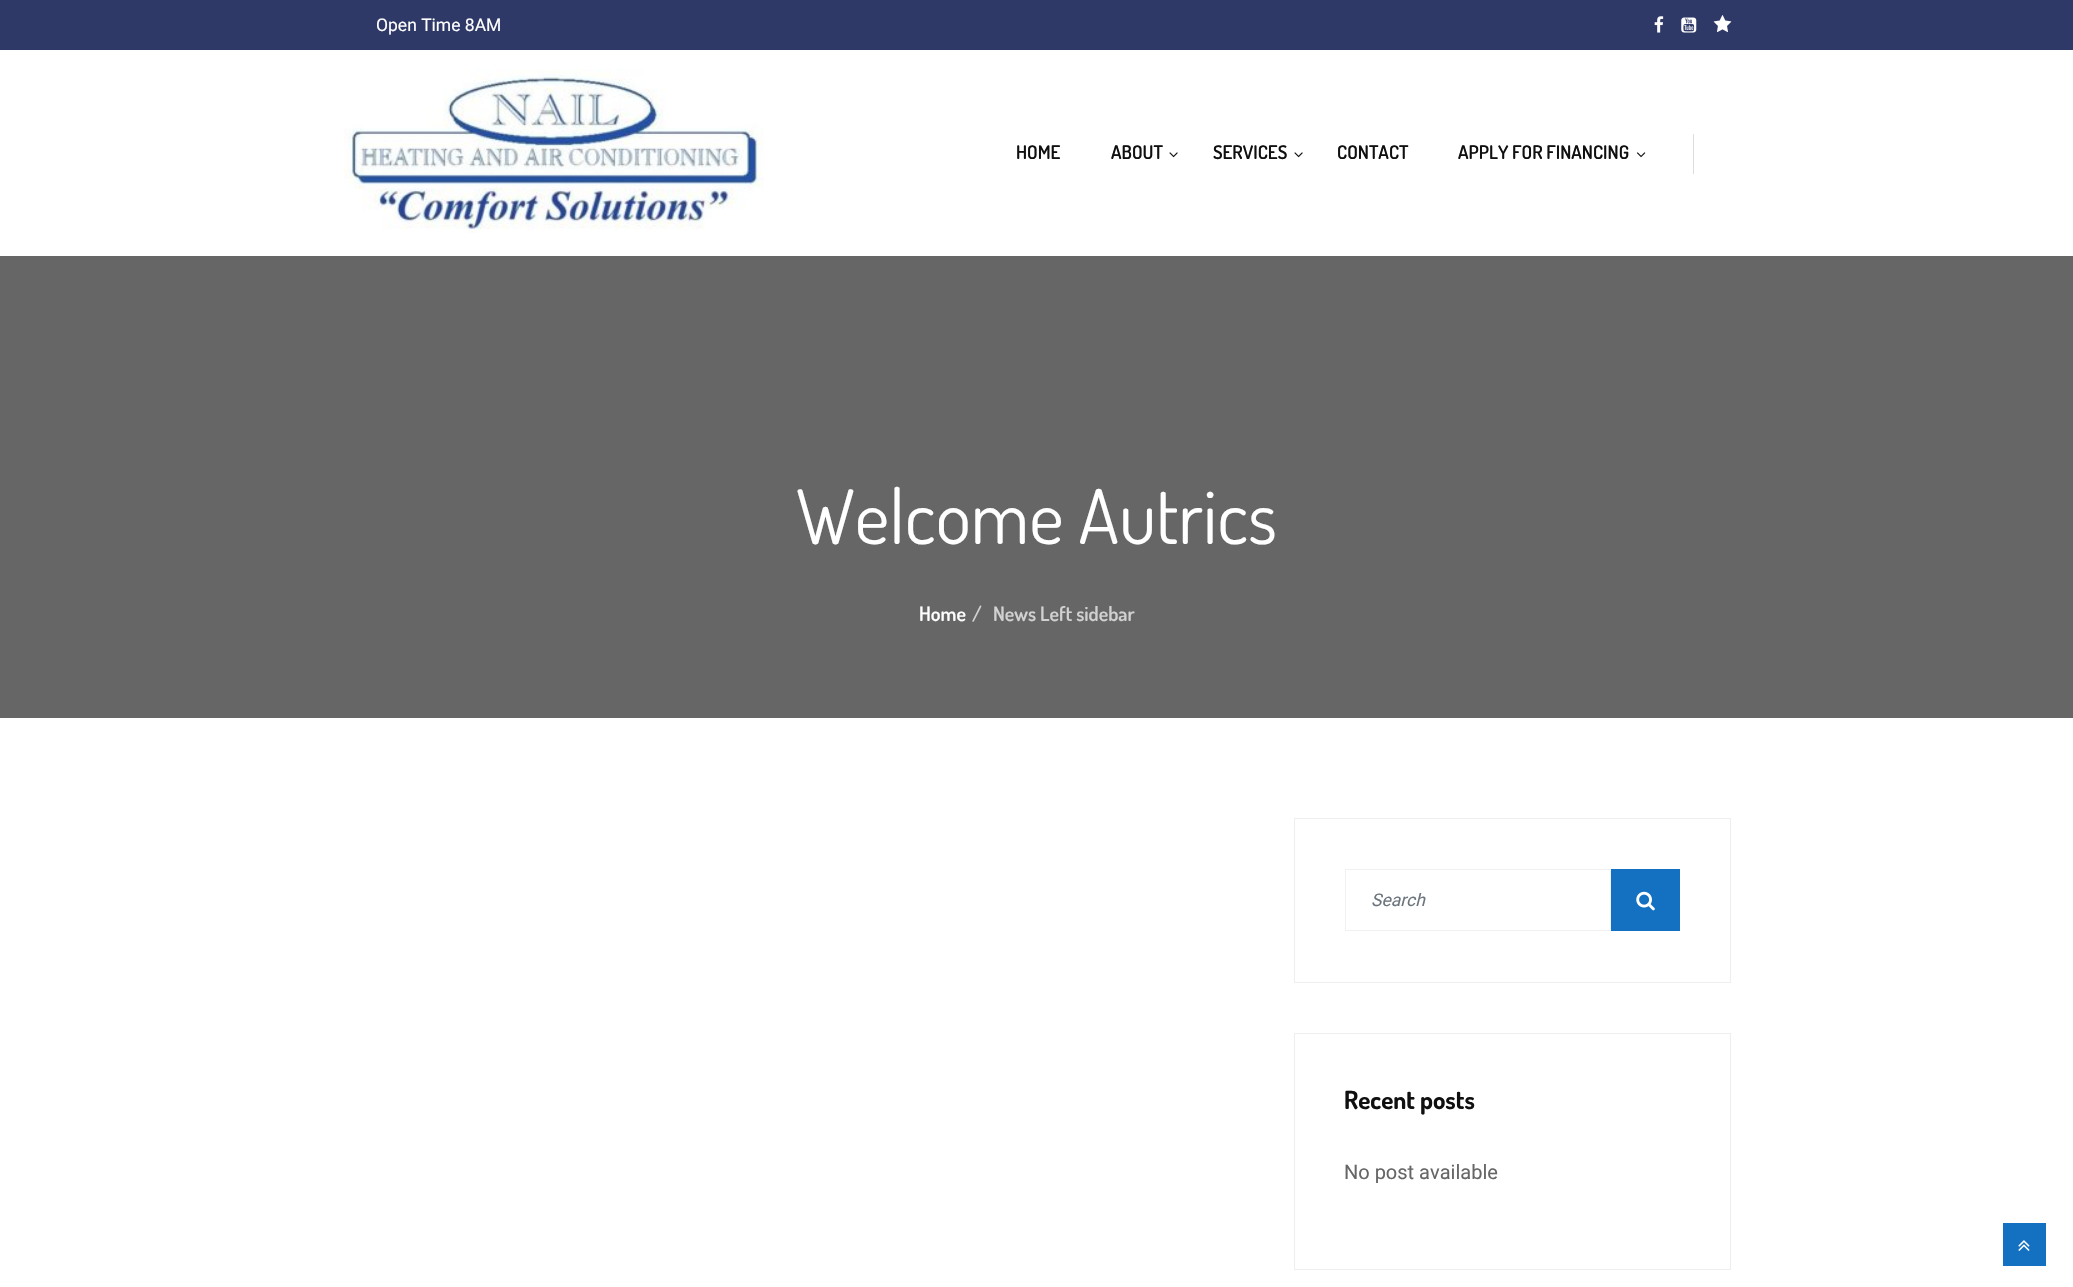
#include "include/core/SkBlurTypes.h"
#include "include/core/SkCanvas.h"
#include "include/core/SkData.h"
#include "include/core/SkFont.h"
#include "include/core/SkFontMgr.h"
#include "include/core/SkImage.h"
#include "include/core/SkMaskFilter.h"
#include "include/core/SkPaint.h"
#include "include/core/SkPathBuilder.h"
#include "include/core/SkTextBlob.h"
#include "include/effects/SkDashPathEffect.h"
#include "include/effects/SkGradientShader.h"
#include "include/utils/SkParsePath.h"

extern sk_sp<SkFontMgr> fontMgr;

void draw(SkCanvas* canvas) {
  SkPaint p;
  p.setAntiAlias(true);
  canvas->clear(SK_ColorWHITE);
  p.setColor(SkColorSetRGB(47, 57, 103));
  canvas->drawRect(SkRect::MakeLTRB(0, 0, 2073, 50), p);
  canvas->drawImageRect(SkImages::DeferredFromEncodedData(SkData::MakeFromFileName("images/1.png")), SkRect::MakeLTRB(1654, 16, 1664, 33), SkSamplingOptions());
  canvas->drawImageRect(SkImages::DeferredFromEncodedData(SkData::MakeFromFileName("images/2.png")), SkRect::MakeLTRB(1681, 17, 1697, 33), SkSamplingOptions());
  canvas->drawImageRect(SkImages::DeferredFromEncodedData(SkData::MakeFromFileName("images/3.png")), SkRect::MakeLTRB(1713, 15, 1732, 33), SkSamplingOptions());
  canvas->drawImageRect(SkImages::DeferredFromEncodedData(SkData::MakeFromFileName("images/4.png")), SkRect::MakeLTRB(343, 69, 764, 233), SkSamplingOptions());
  canvas->drawImageRect(SkImages::DeferredFromEncodedData(SkData::MakeFromFileName("images/5.png")), SkRect::MakeLTRB(1169, 152, 1178, 158), SkSamplingOptions());
  canvas->drawImageRect(SkImages::DeferredFromEncodedData(SkData::MakeFromFileName("images/5.png")), SkRect::MakeLTRB(1294, 152, 1303, 158), SkSamplingOptions());
  canvas->drawImageRect(SkImages::DeferredFromEncodedData(SkData::MakeFromFileName("images/6.png")), SkRect::MakeLTRB(1637, 152, 1646, 158), SkSamplingOptions());
  p.setColor(SkColorSetRGB(221, 221, 221));
  canvas->drawRect(SkRect::MakeLTRB(1693, 134, 1694, 174), p);
  p.setColor(SkColorSetRGB(102, 102, 102));
  canvas->drawRect(SkRect::MakeLTRB(0, 256, 2073, 718), p);
  p.setStyle(SkPaint::kStroke_Style);
  p.setStrokeWidth(1);
  p.setColor(SkColorSetRGB(238, 238, 238));
  canvas->drawRect(SkRect::MakeLTRB(1294.5f, 818.5f, 1730.5f, 982.5f), p);
  p.setColor(SkColorSetRGB(241, 241, 241));
  canvas->drawRect(SkRect::MakeLTRB(1345.5f, 869.5f, 1610.5f, 930.5f), p);
  p.setStyle(SkPaint::kFill_Style);
  p.setColor(SkColorSetRGB(20, 112, 193));
  canvas->drawRect(SkRect::MakeLTRB(1611, 869, 1680, 931), p);
  canvas->drawImageRect(SkImages::DeferredFromEncodedData(SkData::MakeFromFileName("images/7.png")), SkRect::MakeLTRB(1636, 891, 1655, 911), SkSamplingOptions());
  p.setStyle(SkPaint::kStroke_Style);
  p.setColor(SkColorSetRGB(238, 238, 238));
  canvas->drawRect(SkRect::MakeLTRB(1294.5f, 1033.5f, 1730.5f, 1269.5f), p);
  p.setStyle(SkPaint::kFill_Style);
  p.setColor(SkColorSetRGB(20, 112, 193));
  canvas->drawRect(SkRect::MakeLTRB(2003, 1223, 2046, 1266), p);
  canvas->drawImageRect(SkImages::DeferredFromEncodedData(SkData::MakeFromFileName("images/8.png")), SkRect::MakeLTRB(2018, 1240, 2030, 1251), SkSamplingOptions());
  SkFont font1(fontMgr->matchFamilyStyle("Roboto", SkFontStyle::Normal()), 17.5f);
  font1.setSubpixel(true);
  p.setColor(SK_ColorWHITE);
  canvas->drawString("Open Time 8AM", 376, 31, font1, p);
  SkFont font2(fontMgr->matchFamilyStyle("Dosis", SkFontStyle(600, SkFontStyle::kNormal_Width, SkFontStyle::kUpright_Slant)), 18.75f);
  font2.setSubpixel(true);
  p.setColor(SkColorSetRGB(16, 16, 16));
  canvas->drawString("HOME", 1016, 159, font2, p);
  canvas->drawString("ABOUT", 1111, 159, font2, p);
  canvas->drawString("SERVICES", 1213, 159, font2, p);
  canvas->drawString("CONTACT", 1337, 159, font2, p);
  canvas->drawString("APPLY FOR FINANCING", 1458, 159, font2, p);
  SkFont font3(fontMgr->matchFamilyStyle("Dosis", SkFontStyle::Normal()), 75);
  font3.setSubpixel(true);
  p.setColor(SK_ColorWHITE);
  canvas->drawString("Welcome Autrics", 796, 544, font3, p);
  SkFont font4(fontMgr->matchFamilyStyle("Dosis", SkFontStyle(600, SkFontStyle::kNormal_Width, SkFontStyle::kUpright_Slant)), 20);
  font4.setSubpixel(true);
  canvas->drawString("Home", 919, 621, font4, p);
  p.setColor(SkColorSetRGB(209, 209, 209));
  canvas->drawString("/", 972, 621, font4, p);
  canvas->drawString("News Left sidebar", 993, 621, font4, p);
  SkFont font5(fontMgr->matchFamilyStyle("Roboto", SkFontStyle::Italic()), 17.5f);
  font5.setSubpixel(true);
  p.setColor(SkColorSetRGB(108, 117, 125));
  canvas->drawString("Search", 1371, 906, font5, p);
  SkFont font6(fontMgr->matchFamilyStyle("Dosis", SkFontStyle::Bold()), 25);
  font6.setSubpixel(true);
  p.setColor(SkColorSetRGB(16, 16, 16));
  canvas->drawString("Recent posts", 1344, 1109, font6, p);
  SkFont font7(fontMgr->matchFamilyStyle("Roboto", SkFontStyle::Normal()), 20);
  font7.setSubpixel(true);
  p.setColor(SkColorSetRGB(102, 102, 102));
  canvas->drawString("No post available", 1344, 1179, font7, p);
}
